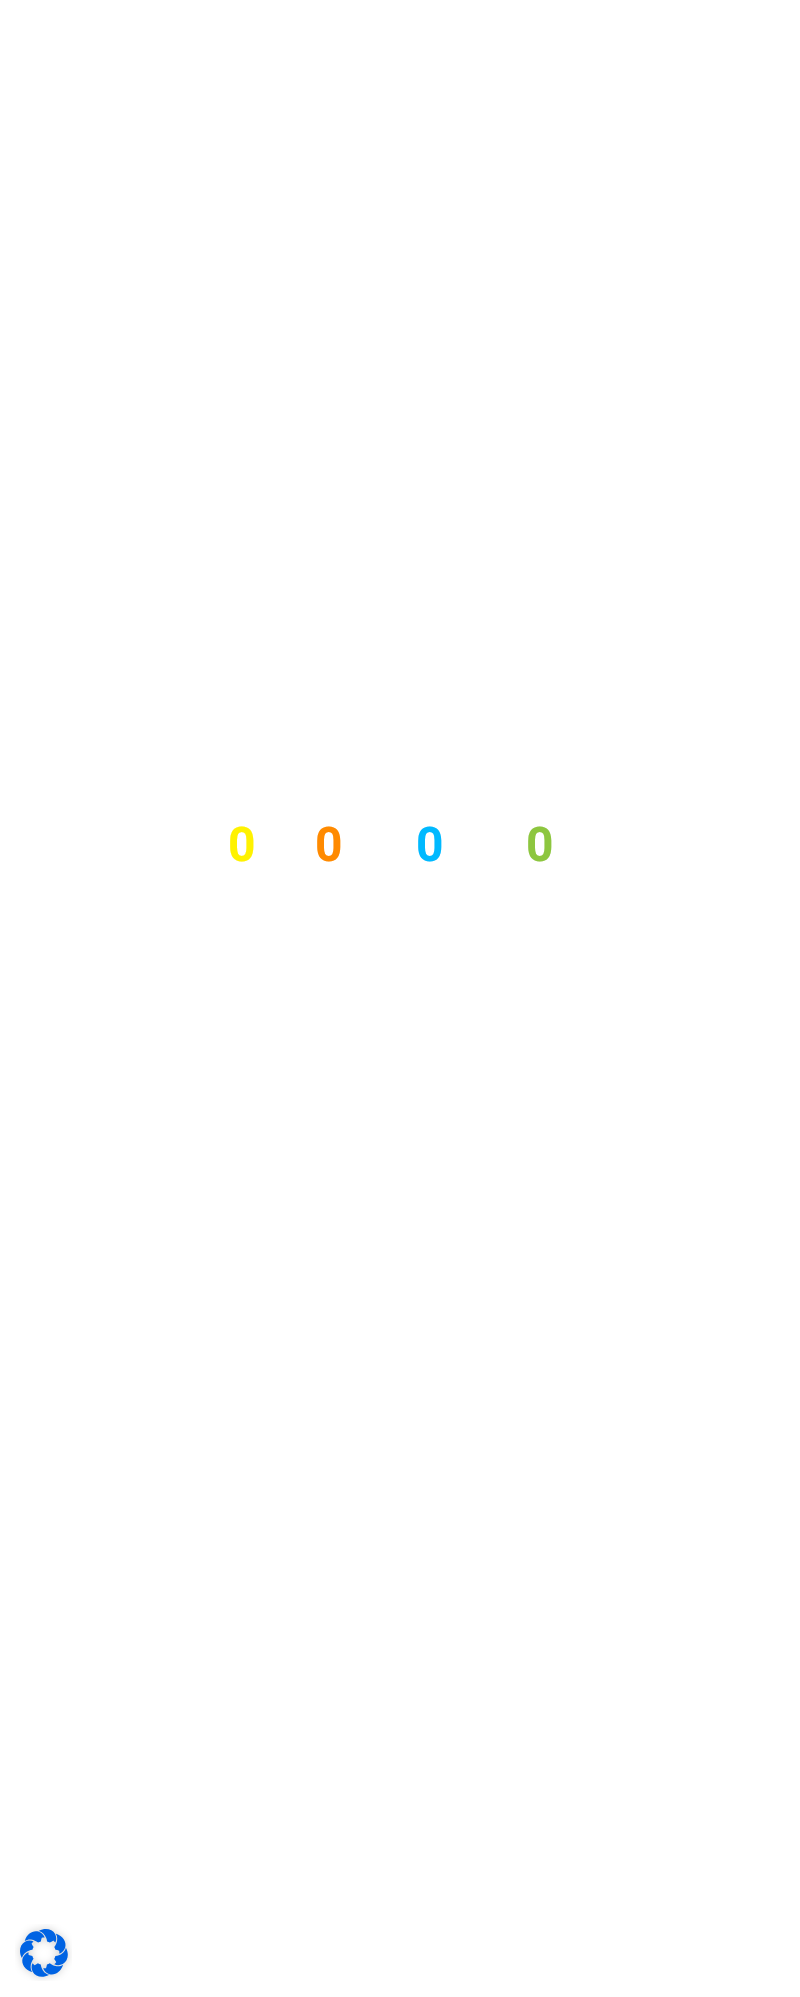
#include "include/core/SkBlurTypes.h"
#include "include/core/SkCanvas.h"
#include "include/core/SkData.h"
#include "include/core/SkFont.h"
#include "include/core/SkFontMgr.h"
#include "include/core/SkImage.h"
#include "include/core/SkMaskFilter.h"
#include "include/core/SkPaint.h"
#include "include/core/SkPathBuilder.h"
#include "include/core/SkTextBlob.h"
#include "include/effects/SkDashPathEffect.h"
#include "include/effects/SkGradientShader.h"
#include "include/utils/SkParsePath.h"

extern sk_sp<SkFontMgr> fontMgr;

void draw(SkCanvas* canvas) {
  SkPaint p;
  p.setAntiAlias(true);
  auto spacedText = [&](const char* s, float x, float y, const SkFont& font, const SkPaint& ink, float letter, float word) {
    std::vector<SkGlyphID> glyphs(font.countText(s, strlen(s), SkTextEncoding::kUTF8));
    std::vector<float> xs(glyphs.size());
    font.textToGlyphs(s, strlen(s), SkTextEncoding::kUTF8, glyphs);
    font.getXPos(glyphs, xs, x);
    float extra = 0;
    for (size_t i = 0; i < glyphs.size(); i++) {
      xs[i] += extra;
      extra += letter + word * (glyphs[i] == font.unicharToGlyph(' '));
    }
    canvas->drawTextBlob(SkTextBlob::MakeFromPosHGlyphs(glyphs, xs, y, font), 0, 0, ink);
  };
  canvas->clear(SK_ColorWHITE);
  canvas->drawImageRect(SkImages::DeferredFromEncodedData(SkData::MakeFromFileName("images/1.png")), SkRect::MakeLTRB(15, 1924, 72, 1981), SkSamplingOptions());
  SkFont font1(fontMgr->matchFamilyStyle("Roboto", SkFontStyle::Bold()), 48);
  font1.setSubpixel(true);
  p.setColor(SkColorSetRGB(255, 242, 0));
  spacedText("0", 228, 861, font1, p, 3, 0);
  p.setColor(SkColorSetRGB(255, 138, 0));
  spacedText("0", 315, 861, font1, p, 3, 0);
  p.setColor(SkColorSetRGB(0, 185, 255));
  spacedText("0", 416, 861, font1, p, 3, 0);
  p.setColor(SkColorSetRGB(141, 198, 63));
  spacedText("0", 526, 861, font1, p, 3, 0);
}
